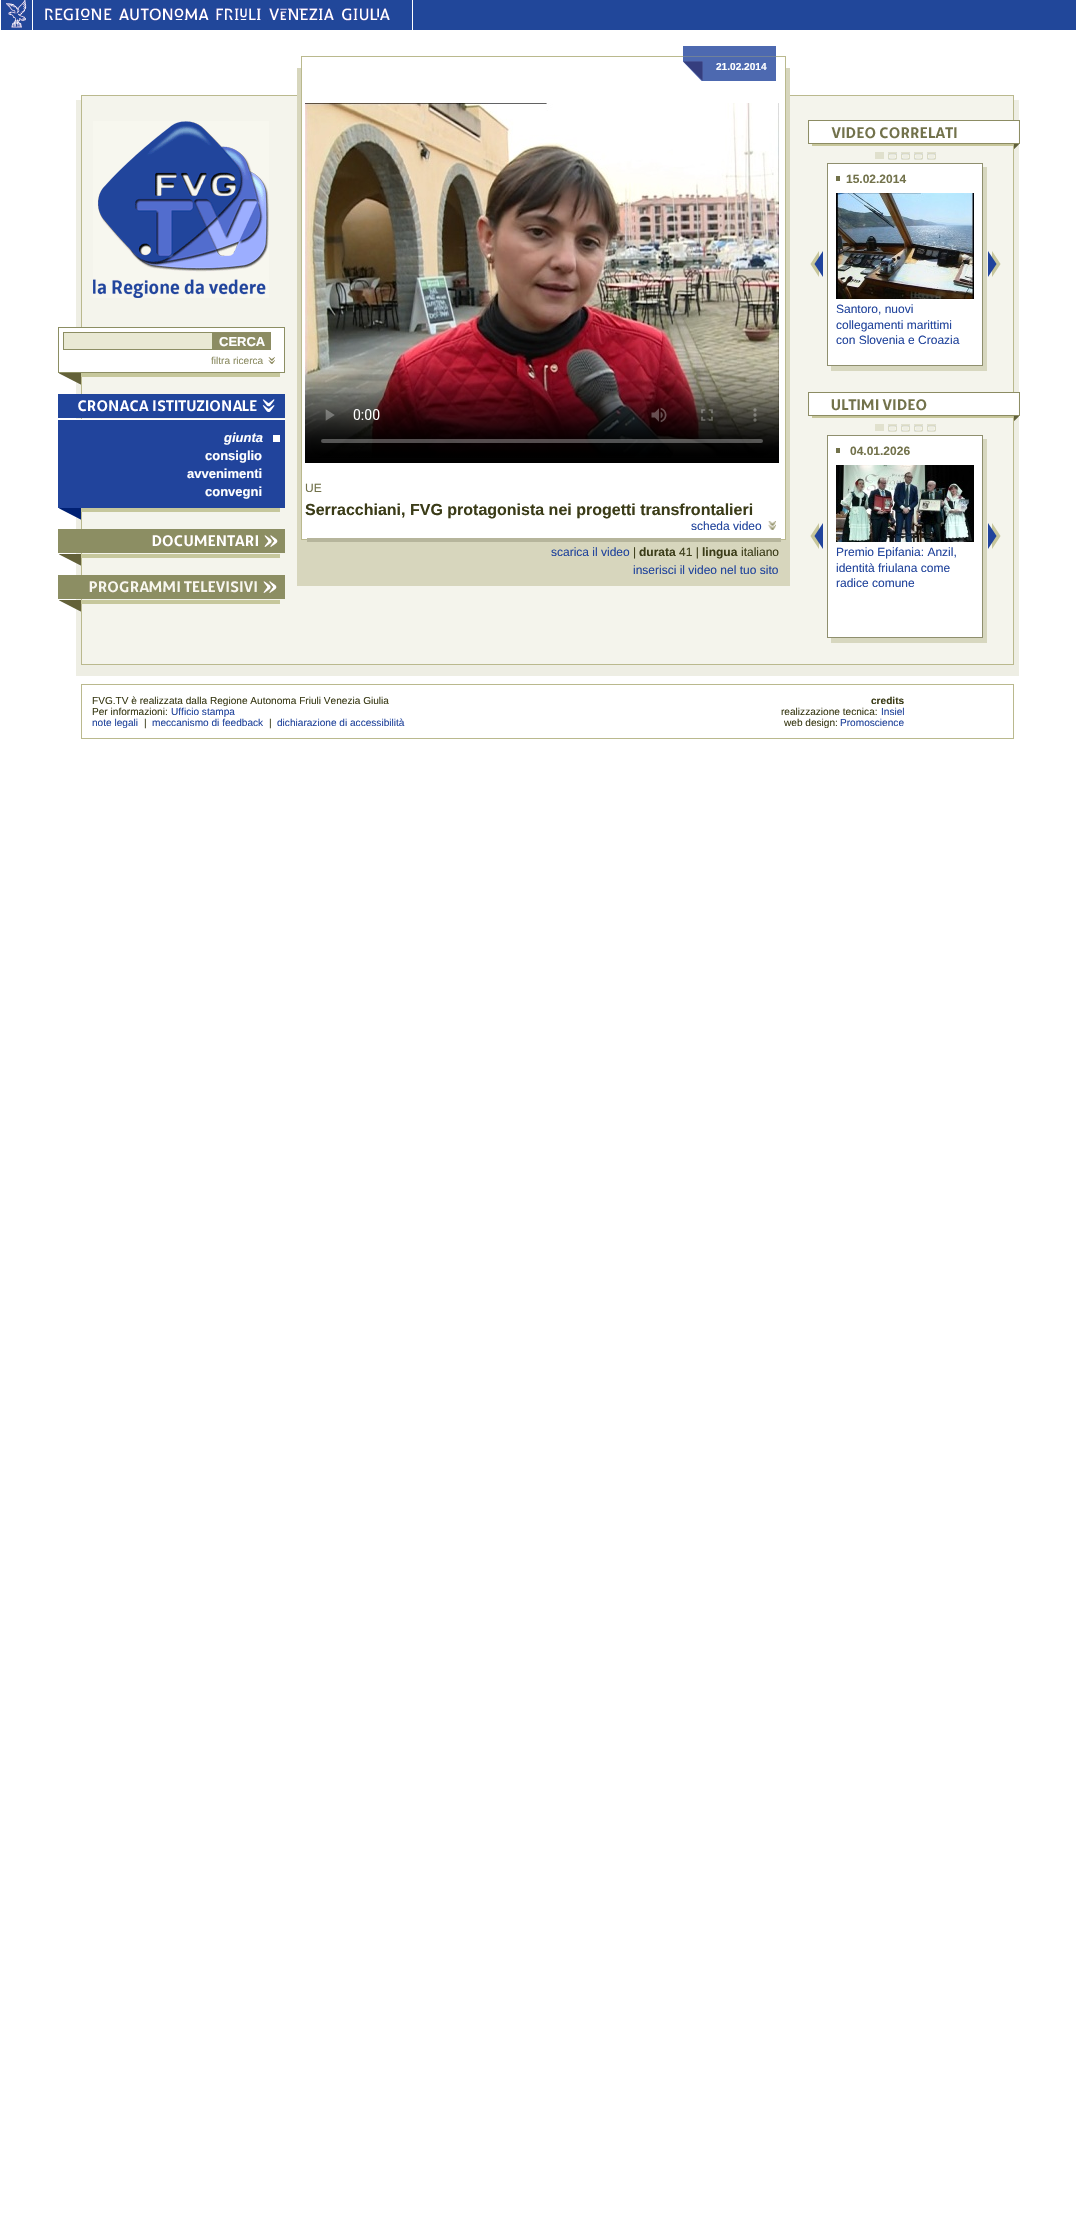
#include "include/core/SkBlurTypes.h"
#include "include/core/SkCanvas.h"
#include "include/core/SkData.h"
#include "include/core/SkFont.h"
#include "include/core/SkFontMgr.h"
#include "include/core/SkImage.h"
#include "include/core/SkMaskFilter.h"
#include "include/core/SkPaint.h"
#include "include/core/SkPathBuilder.h"
#include "include/core/SkTextBlob.h"
#include "include/effects/SkDashPathEffect.h"
#include "include/effects/SkGradientShader.h"
#include "include/utils/SkParsePath.h"

extern sk_sp<SkFontMgr> fontMgr;

void draw(SkCanvas* canvas) {
  SkPaint p;
  p.setAntiAlias(true);
  canvas->clear(SK_ColorWHITE);
  p.setColor(SkColorSetRGB(33, 71, 154));
  canvas->drawRect(SkRect::MakeLTRB(1, 0, 1076, 30), p);
  p.setColor(SK_ColorWHITE);
  canvas->drawRect(SkRect::MakeLTRB(32, 0, 33, 33), p);
  canvas->drawImageRect(SkImages::DeferredFromEncodedData(SkData::MakeFromFileName("images/1.png")), SkRect::MakeLTRB(6, 0, 27, 28), SkSamplingOptions());
  canvas->drawRect(SkRect::MakeLTRB(412, 0, 413, 33), p);
  canvas->drawImageRect(SkImages::DeferredFromEncodedData(SkData::MakeFromFileName("images/2.png")), SkRect::MakeLTRB(45, 8, 390, 21), SkSamplingOptions());
  p.setColor(SkColorSetRGB(238, 238, 228));
  canvas->drawRect(SkRect::MakeLTRB(76, 100, 1019, 676), p);
  p.setColor(SkColorSetRGB(244, 244, 236));
  canvas->drawRect(SkRect::MakeLTRB(81.5f, 95.5f, 1013.5f, 664.5f), p);
  p.setStyle(SkPaint::kStroke_Style);
  p.setStrokeWidth(1);
  p.setColor(SkColorSetRGB(186, 185, 142));
  canvas->drawRect(SkRect::MakeLTRB(81.5f, 95.5f, 1013.5f, 664.5f), p);
  canvas->drawImageRect(SkImages::DeferredFromEncodedData(SkData::MakeFromFileName("images/3.png")), SkRect::MakeLTRB(93, 121, 269, 298), SkSamplingOptions());
  p.setStyle(SkPaint::kFill_Style);
  p.setColor(SK_ColorWHITE);
  canvas->drawRect(SkRect::MakeLTRB(76, 328, 284, 372), p);
  p.setStyle(SkPaint::kStroke_Style);
  p.setColor(SkColorSetRGB(140, 142, 99));
  canvas->drawRect(SkRect::MakeLTRB(58.5f, 327.5f, 284.5f, 372.5f), p);
  p.setStyle(SkPaint::kFill_Style);
  p.setColor(SkColorSetRGB(233, 233, 212));
  canvas->drawRect(SkRect::MakeLTRB(63.5f, 332.5f, 212.5f, 349.5f), p);
  p.setStyle(SkPaint::kStroke_Style);
  p.setColor(SkColorSetRGB(140, 142, 99));
  canvas->drawRect(SkRect::MakeLTRB(63.5f, 332.5f, 212.5f, 349.5f), p);
  p.setStyle(SkPaint::kFill_Style);
  p.setColor(SkColorSetRGB(140, 140, 99));
  canvas->drawRect(SkRect::MakeLTRB(213, 332, 271, 350), p);
  canvas->drawImageRect(SkImages::DeferredFromEncodedData(SkData::MakeFromFileName("images/4.png")), SkRect::MakeLTRB(268, 357, 275, 364), SkSamplingOptions());
  canvas->drawImageRect(SkImages::DeferredFromEncodedData(SkData::MakeFromFileName("images/5.png")), SkRect::MakeLTRB(59, 373, 81, 385), SkSamplingOptions());
  p.setColor(SkColorSetRGB(198, 199, 156));
  canvas->drawRect(SkRect::MakeLTRB(81, 373, 280, 377), p);
  canvas->drawImageRect(SkImages::DeferredFromEncodedData(SkData::MakeFromFileName("images/6.png")), SkRect::MakeLTRB(58, 394, 285, 418), SkSamplingOptions());
  p.setColor(SkColorSetRGB(33, 68, 156));
  canvas->drawRect(SkRect::MakeLTRB(58, 420, 285, 508), p);
  p.setColor(SK_ColorWHITE);
  canvas->drawRect(SkRect::MakeLTRB(76, 419, 285, 420), p);
  canvas->drawRect(SkRect::MakeLTRB(273, 435, 280, 442), p);
  canvas->drawImageRect(SkImages::DeferredFromEncodedData(SkData::MakeFromFileName("images/7.png")), SkRect::MakeLTRB(59, 508, 81, 520), SkSamplingOptions());
  p.setColor(SkColorSetRGB(198, 199, 156));
  canvas->drawRect(SkRect::MakeLTRB(81, 508, 280, 512), p);
  canvas->drawImageRect(SkImages::DeferredFromEncodedData(SkData::MakeFromFileName("images/8.png")), SkRect::MakeLTRB(58, 529, 285, 553), SkSamplingOptions());
  canvas->drawImageRect(SkImages::DeferredFromEncodedData(SkData::MakeFromFileName("images/5.png")), SkRect::MakeLTRB(59, 554, 81, 566), SkSamplingOptions());
  canvas->drawRect(SkRect::MakeLTRB(81, 554, 280, 558), p);
  canvas->drawImageRect(SkImages::DeferredFromEncodedData(SkData::MakeFromFileName("images/9.png")), SkRect::MakeLTRB(58, 575, 285, 599), SkSamplingOptions());
  canvas->drawImageRect(SkImages::DeferredFromEncodedData(SkData::MakeFromFileName("images/5.png")), SkRect::MakeLTRB(59, 600, 81, 612), SkSamplingOptions());
  canvas->drawRect(SkRect::MakeLTRB(81, 600, 280, 604), p);
  p.setColor(SkColorSetRGB(215, 214, 189));
  canvas->drawRect(SkRect::MakeLTRB(297, 68, 790, 586), p);
  p.setColor(SK_ColorWHITE);
  canvas->drawRect(SkRect::MakeLTRB(302, 68, 785, 539), p);
  p.setStyle(SkPaint::kStroke_Style);
  p.setColor(SkColorSetRGB(186, 185, 142));
  canvas->drawRect(SkRect::MakeLTRB(301.5f, 56.5f, 785.5f, 539.5f), p);
  p.setStyle(SkPaint::kFill_Style);
  p.setColor(SkColorSetRGB(77, 105, 176));
  canvas->drawRect(SkRect::MakeLTRB(683, 46, 776, 81), p);
  p.setColor(SkColorSetRGB(112, 129, 154));
  canvas->drawRect(SkRect::MakeLTRB(683, 56, 776, 57), p);
  canvas->drawImageRect(SkImages::DeferredFromEncodedData(SkData::MakeFromFileName("images/10.png")), SkRect::MakeLTRB(683, 61, 703, 81), SkSamplingOptions());
  canvas->drawImageRect(SkImages::DeferredFromEncodedData(SkData::MakeFromFileName("images/11.png")), SkRect::MakeLTRB(305, 103, 779, 463), SkSamplingOptions());
  canvas->drawImageRect(SkImages::DeferredFromEncodedData(SkData::MakeFromFileName("images/12.png")), SkRect::MakeLTRB(768, 521, 776, 530), SkSamplingOptions());
  p.setColor(SkColorSetRGB(182, 181, 156));
  canvas->drawRect(SkRect::MakeLTRB(307, 538, 781, 542), p);
  canvas->drawImageRect(SkImages::DeferredFromEncodedData(SkData::MakeFromFileName("images/13.png")), SkRect::MakeLTRB(808, 120, 1020, 144), SkSamplingOptions());
  p.setColor(SkColorSetRGB(199, 198, 155));
  canvas->drawRect(SkRect::MakeLTRB(812, 144, 1013, 146), p);
  canvas->drawImageRect(SkImages::DeferredFromEncodedData(SkData::MakeFromFileName("images/14.png")), SkRect::MakeLTRB(1014, 144, 1019, 149), SkSamplingOptions());
  p.setColor(SkColorSetRGB(224, 224, 205));
  canvas->drawRect(SkRect::MakeLTRB(875, 152, 884, 159), p);
  p.setColor(SkColorSetRGB(225, 225, 206));
  canvas->drawRect(SkRect::MakeLTRB(888, 152, 897, 159), p);
  canvas->drawImageRect(SkImages::DeferredFromEncodedData(SkData::MakeFromFileName("images/15.png")), SkRect::MakeLTRB(888, 153, 897, 160), SkSamplingOptions());
  canvas->drawRect(SkRect::MakeLTRB(901, 152, 910, 159), p);
  canvas->drawImageRect(SkImages::DeferredFromEncodedData(SkData::MakeFromFileName("images/15.png")), SkRect::MakeLTRB(901, 153, 910, 160), SkSamplingOptions());
  canvas->drawRect(SkRect::MakeLTRB(914, 152, 923, 159), p);
  canvas->drawImageRect(SkImages::DeferredFromEncodedData(SkData::MakeFromFileName("images/15.png")), SkRect::MakeLTRB(914, 153, 923, 160), SkSamplingOptions());
  canvas->drawRect(SkRect::MakeLTRB(927, 152, 936, 159), p);
  canvas->drawImageRect(SkImages::DeferredFromEncodedData(SkData::MakeFromFileName("images/15.png")), SkRect::MakeLTRB(927, 153, 936, 160), SkSamplingOptions());
  canvas->drawImageRect(SkImages::DeferredFromEncodedData(SkData::MakeFromFileName("images/16.png")), SkRect::MakeLTRB(810, 251, 823, 277), SkSamplingOptions());
  p.setColor(SkColorSetRGB(215, 215, 191));
  canvas->drawRect(SkRect::MakeLTRB(831, 167, 987, 371), p);
  p.setColor(SK_ColorWHITE);
  canvas->drawRect(SkRect::MakeLTRB(827.5f, 163.5f, 982.5f, 365.5f), p);
  p.setStyle(SkPaint::kStroke_Style);
  p.setColor(SkColorSetRGB(143, 143, 110));
  canvas->drawRect(SkRect::MakeLTRB(827.5f, 163.5f, 982.5f, 365.5f), p);
  p.setStyle(SkPaint::kFill_Style);
  p.setColor(SkColorSetRGB(114, 114, 75));
  canvas->drawRect(SkRect::MakeLTRB(836, 176, 840, 181), p);
  canvas->drawImageRect(SkImages::DeferredFromEncodedData(SkData::MakeFromFileName("images/17.png")), SkRect::MakeLTRB(836, 193, 974, 299), SkSamplingOptions());
  canvas->drawImageRect(SkImages::DeferredFromEncodedData(SkData::MakeFromFileName("images/18.png")), SkRect::MakeLTRB(988, 251, 1001, 277), SkSamplingOptions());
  canvas->drawImageRect(SkImages::DeferredFromEncodedData(SkData::MakeFromFileName("images/19.png")), SkRect::MakeLTRB(808, 392, 1020, 416), SkSamplingOptions());
  p.setColor(SkColorSetRGB(199, 198, 155));
  canvas->drawRect(SkRect::MakeLTRB(812, 416, 1013, 418), p);
  canvas->drawImageRect(SkImages::DeferredFromEncodedData(SkData::MakeFromFileName("images/14.png")), SkRect::MakeLTRB(1014, 416, 1019, 421), SkSamplingOptions());
  p.setColor(SkColorSetRGB(225, 225, 206));
  canvas->drawRect(SkRect::MakeLTRB(875, 424, 884, 431), p);
  canvas->drawRect(SkRect::MakeLTRB(888, 424, 897, 431), p);
  canvas->drawImageRect(SkImages::DeferredFromEncodedData(SkData::MakeFromFileName("images/15.png")), SkRect::MakeLTRB(888, 425, 897, 432), SkSamplingOptions());
  canvas->drawRect(SkRect::MakeLTRB(901, 424, 910, 431), p);
  canvas->drawImageRect(SkImages::DeferredFromEncodedData(SkData::MakeFromFileName("images/15.png")), SkRect::MakeLTRB(901, 425, 910, 432), SkSamplingOptions());
  canvas->drawRect(SkRect::MakeLTRB(914, 424, 923, 431), p);
  canvas->drawImageRect(SkImages::DeferredFromEncodedData(SkData::MakeFromFileName("images/15.png")), SkRect::MakeLTRB(914, 425, 923, 432), SkSamplingOptions());
  canvas->drawRect(SkRect::MakeLTRB(927, 424, 936, 431), p);
  canvas->drawImageRect(SkImages::DeferredFromEncodedData(SkData::MakeFromFileName("images/15.png")), SkRect::MakeLTRB(927, 425, 936, 432), SkSamplingOptions());
  canvas->drawImageRect(SkImages::DeferredFromEncodedData(SkData::MakeFromFileName("images/16.png")), SkRect::MakeLTRB(810, 523, 823, 549), SkSamplingOptions());
  p.setColor(SkColorSetRGB(215, 215, 191));
  canvas->drawRect(SkRect::MakeLTRB(831, 439, 987, 643), p);
  p.setColor(SK_ColorWHITE);
  canvas->drawRect(SkRect::MakeLTRB(827.5f, 435.5f, 982.5f, 637.5f), p);
  p.setStyle(SkPaint::kStroke_Style);
  p.setColor(SkColorSetRGB(143, 143, 110));
  canvas->drawRect(SkRect::MakeLTRB(827.5f, 435.5f, 982.5f, 637.5f), p);
  p.setStyle(SkPaint::kFill_Style);
  p.setColor(SkColorSetRGB(114, 114, 75));
  canvas->drawRect(SkRect::MakeLTRB(836, 448, 840, 453), p);
  canvas->drawImageRect(SkImages::DeferredFromEncodedData(SkData::MakeFromFileName("images/20.png")), SkRect::MakeLTRB(836, 465, 974, 542), SkSamplingOptions());
  canvas->drawImageRect(SkImages::DeferredFromEncodedData(SkData::MakeFromFileName("images/18.png")), SkRect::MakeLTRB(988, 523, 1001, 549), SkSamplingOptions());
  p.setStyle(SkPaint::kStroke_Style);
  p.setColor(SkColorSetRGB(186, 185, 142));
  canvas->drawRect(SkRect::MakeLTRB(81.5f, 684.5f, 1013.5f, 738.5f), p);
  SkFont font1(fontMgr->matchFamilyStyle("Liberation Sans", SkFontStyle::Bold()), 13);
  font1.setSubpixel(true);
  p.setStyle(SkPaint::kFill_Style);
  p.setColor(SK_ColorWHITE);
  canvas->drawString("CERCA", 219, 346, font1, p);
  SkFont font2(fontMgr->matchFamilyStyle("Liberation Sans", SkFontStyle::Normal()), 10.1f);
  font2.setSubpixel(true);
  p.setColor(SkColorSetRGB(140, 140, 99));
  canvas->drawString("filtra ricerca", 211, 364, font2, p);
  SkFont font3(fontMgr->matchFamilyStyle("Liberation Sans", SkFontStyle::BoldItalic()), 13);
  font3.setSubpixel(true);
  p.setColor(SK_ColorWHITE);
  canvas->drawString("giunta", 224, 442, font3, p);
  canvas->drawString("consiglio", 205, 460, font1, p);
  canvas->drawString("avvenimenti", 187, 478, font1, p);
  canvas->drawString("convegni", 205, 496, font1, p);
  SkFont font4(fontMgr->matchFamilyStyle("Liberation Sans", SkFontStyle::Bold()), 10.1f);
  font4.setSubpixel(true);
  canvas->drawString("21.02.2014", 716, 70, font4, p);
  SkFont font5(fontMgr->matchFamilyStyle("Liberation Sans", SkFontStyle::Normal()), 12);
  font5.setSubpixel(true);
  p.setColor(SkColorSetRGB(114, 114, 75));
  canvas->drawString("UE", 305, 492, font5, p);
  SkFont font6(fontMgr->matchFamilyStyle("Liberation Sans", SkFontStyle::Bold()), 16);
  font6.setSubpixel(true);
  p.setColor(SkColorSetRGB(59, 60, 24));
  canvas->drawString("Serracchiani, FVG protagonista nei progetti transfrontalieri", 305, 515, font6, p);
  p.setColor(SkColorSetRGB(33, 68, 156));
  canvas->drawString("scheda video", 691, 530, font5, p);
  canvas->drawString("scarica il video", 551, 556, font5, p);
  p.setColor(SkColorSetRGB(59, 60, 24));
  canvas->drawString("|", 633, 556, font5, p);
  SkFont font7(fontMgr->matchFamilyStyle("Liberation Sans", SkFontStyle::Bold()), 12);
  font7.setSubpixel(true);
  canvas->drawString("durata", 639, 556, font7, p);
  canvas->drawString("41 |", 679, 556, font5, p);
  canvas->drawString("lingua", 702, 556, font7, p);
  canvas->drawString("italiano", 741, 556, font5, p);
  p.setColor(SkColorSetRGB(33, 68, 156));
  canvas->drawString("inserisci il video nel tuo sito", 633, 574, font5, p);
  p.setColor(SkColorSetRGB(114, 114, 75));
  canvas->drawString("15.02.2014", 846, 183, font7, p);
  p.setColor(SkColorSetRGB(33, 68, 156));
  canvas->drawString("Santoro, nuovi", 836, 313, font5, p);
  canvas->drawString("collegamenti marittimi", 836, 329, font5, p);
  canvas->drawString("con Slovenia e Croazia", 836, 344, font5, p);
  p.setColor(SkColorSetRGB(114, 114, 75));
  canvas->drawString("04.01.2026", 850, 455, font7, p);
  p.setColor(SkColorSetRGB(33, 68, 156));
  canvas->drawString("Premio Epifania: Anzil,", 836, 556, font5, p);
  canvas->drawString("identità friulana come", 836, 572, font5, p);
  canvas->drawString("radice comune", 836, 587, font5, p);
  p.setColor(SkColorSetRGB(59, 60, 24));
  canvas->drawString("FVG.TV è realizzata dalla Regione Autonoma Friuli Venezia Giulia", 92, 704, font2, p);
  canvas->drawString("Per informazioni:", 92, 715, font2, p);
  p.setColor(SkColorSetRGB(33, 68, 156));
  canvas->drawString("Ufficio stampa", 171, 715, font2, p);
  canvas->drawString("note legali", 92, 726, font2, p);
  p.setColor(SkColorSetRGB(59, 60, 24));
  canvas->drawString("|", 144, 726, font2, p);
  p.setColor(SkColorSetRGB(33, 68, 156));
  canvas->drawString("meccanismo di feedback", 152, 726, font2, p);
  p.setColor(SkColorSetRGB(59, 60, 24));
  canvas->drawString("|", 269, 726, font2, p);
  p.setColor(SkColorSetRGB(33, 68, 156));
  canvas->drawString("dichiarazione di accessibilità", 277, 726, font2, p);
  p.setColor(SkColorSetRGB(59, 60, 24));
  canvas->drawString("credits", 871, 704, font4, p);
  canvas->drawString("realizzazione tecnica:", 781, 715, font2, p);
  p.setColor(SkColorSetRGB(33, 68, 156));
  canvas->drawString("Insiel", 881, 715, font2, p);
  p.setColor(SkColorSetRGB(59, 60, 24));
  canvas->drawString("web design:", 784, 726, font2, p);
  p.setColor(SkColorSetRGB(33, 68, 156));
  canvas->drawString("Promoscience", 840, 726, font2, p);
}
